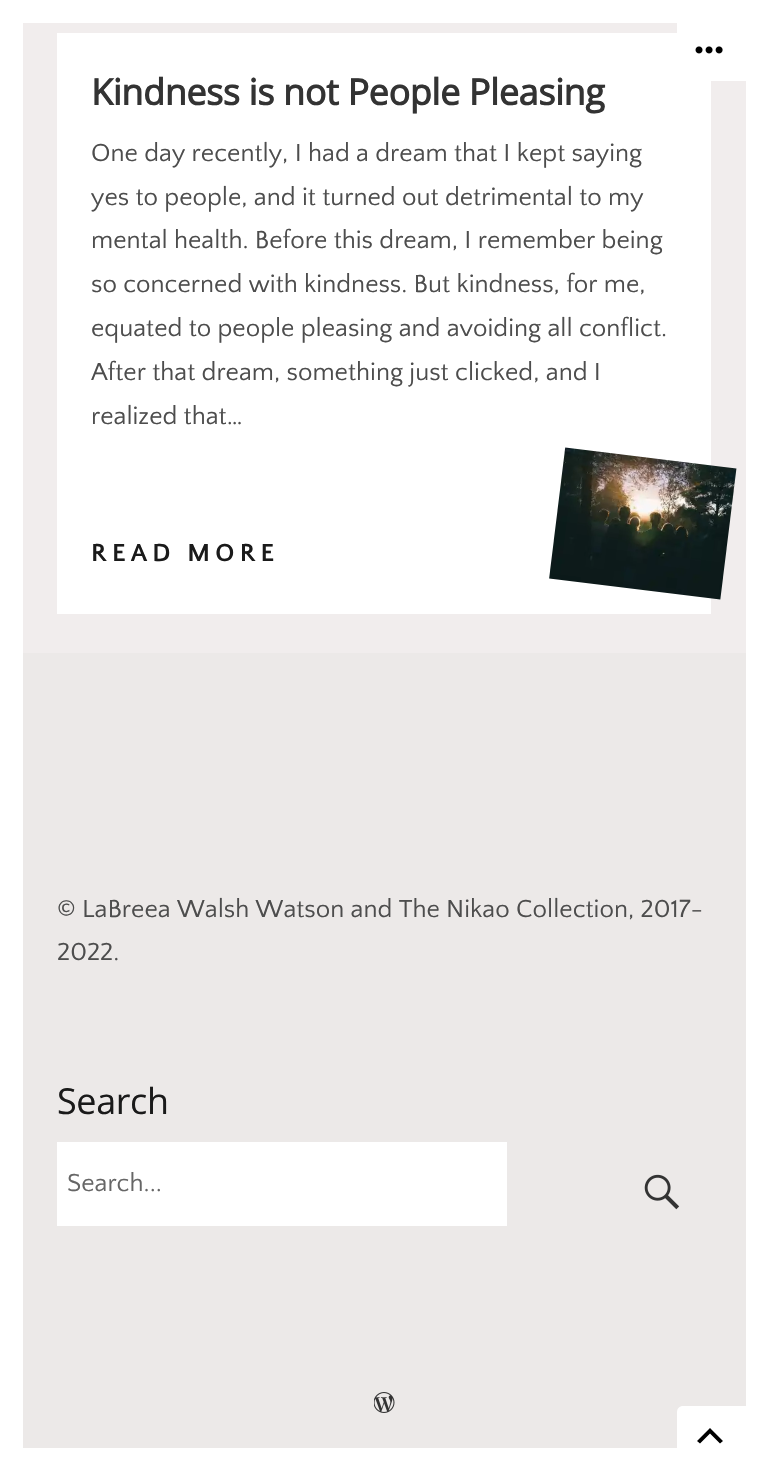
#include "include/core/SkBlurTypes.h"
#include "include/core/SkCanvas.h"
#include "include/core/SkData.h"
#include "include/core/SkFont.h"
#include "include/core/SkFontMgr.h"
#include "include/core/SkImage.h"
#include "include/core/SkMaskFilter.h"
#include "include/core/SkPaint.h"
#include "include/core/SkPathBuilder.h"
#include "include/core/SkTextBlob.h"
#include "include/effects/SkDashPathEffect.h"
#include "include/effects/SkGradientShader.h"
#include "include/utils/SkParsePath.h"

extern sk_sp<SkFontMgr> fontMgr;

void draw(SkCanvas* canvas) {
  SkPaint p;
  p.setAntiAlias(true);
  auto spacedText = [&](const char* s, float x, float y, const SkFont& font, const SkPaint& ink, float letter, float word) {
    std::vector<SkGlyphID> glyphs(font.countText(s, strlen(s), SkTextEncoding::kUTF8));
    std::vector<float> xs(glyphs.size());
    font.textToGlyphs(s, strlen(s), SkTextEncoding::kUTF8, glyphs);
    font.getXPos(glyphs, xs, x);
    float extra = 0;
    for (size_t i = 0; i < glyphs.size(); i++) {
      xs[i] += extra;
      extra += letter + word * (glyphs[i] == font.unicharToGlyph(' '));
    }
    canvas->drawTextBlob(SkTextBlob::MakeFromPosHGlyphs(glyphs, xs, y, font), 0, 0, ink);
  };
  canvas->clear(SkColorSetRGB(236, 233, 232));
  p.setColor(SK_ColorWHITE);
  canvas->drawRect(SkRect::MakeLTRB(746, 23, 768, 1448), p);
  canvas->drawRect(SkRect::MakeLTRB(0, 23, 23, 1448), p);
  canvas->drawRect(SkRect::MakeLTRB(0, 0, 768, 23), p);
  p.setColor(SkColorSetRGB(241, 237, 237));
  canvas->drawRect(SkRect::MakeLTRB(23, 23, 746, 653), p);
  p.setColor(SK_ColorWHITE);
  canvas->drawRect(SkRect::MakeLTRB(57, 33, 711, 614), p);
  canvas->drawPath(SkPathBuilder().moveTo(677, 23).lineTo(746, 23).lineTo(746, 81).lineTo(683, 81).cubicTo(679.5f, 81, 677, 78.5f, 677, 75).close().detach(), p);
  canvas->drawImageRect(SkImages::DeferredFromEncodedData(SkData::MakeFromFileName("images/1.png")), SkRect::MakeLTRB(695, 46, 723, 54), SkSamplingOptions());
  canvas->drawImageRect(SkImages::DeferredFromEncodedData(SkData::MakeFromFileName("images/2.png")), SkRect::MakeLTRB(549, 447, 737, 600), SkSamplingOptions());
  canvas->drawRect(SkRect::MakeLTRB(57, 1142, 507, 1226), p);
  canvas->drawImageRect(SkImages::DeferredFromEncodedData(SkData::MakeFromFileName("images/3.png")), SkRect::MakeLTRB(644, 1174, 680, 1210), SkSamplingOptions());
  canvas->drawImageRect(SkImages::DeferredFromEncodedData(SkData::MakeFromFileName("images/4.png")), SkRect::MakeLTRB(374, 1392, 395, 1413), SkSamplingOptions());
  canvas->drawPath(SkPathBuilder().moveTo(683, 1406).lineTo(746, 1406).lineTo(746, 1464).lineTo(677, 1464).lineTo(677, 1412).cubicTo(677, 1408.5f, 679.5f, 1406, 683, 1406).close().detach(), p);
  p.setColor(SK_ColorBLACK);
  canvas->drawPath(SkPathBuilder().moveTo(720, 1443.5f).lineTo(710, 1433.5f).lineTo(700, 1443.5f).lineTo(697, 1441).lineTo(710, 1428).lineTo(723, 1441).close().detach(), p);
  p.setColor(SK_ColorWHITE);
  canvas->drawRect(SkRect::MakeLTRB(0, 1448, 768, 1470), p);
  SkFont font1(fontMgr->matchFamilyStyle("Open Sans", SkFontStyle::Bold()), 35.9f);
  font1.setSubpixel(true);
  p.setColor(SkColorSetRGB(51, 51, 51));
  spacedText("Kindness is not People Pleasing", 91, 105, font1, p, -0.35f, 0);
  SkFont font2(fontMgr->matchFamilyStyle("Quattrocento Sans", SkFontStyle::Normal()), 25.8f);
  font2.setSubpixel(true);
  p.setColor(SkColorSetRGB(77, 77, 77));
  canvas->drawString("One day recently, I had a dream that I kept saying", 91, 161, font2, p);
  canvas->drawString("yes to people, and it turned out detrimental to my", 91, 205, font2, p);
  canvas->drawString("mental health. Before this dream, I remember being", 91, 248, font2, p);
  canvas->drawString("so concerned with kindness. But kindness, for me,", 91, 292, font2, p);
  canvas->drawString("equated to people pleasing and avoiding all conflict.", 91, 336, font2, p);
  canvas->drawString("After that dream, something just clicked, and I", 91, 380, font2, p);
  canvas->drawString("realized that…", 91, 424, font2, p);
  SkFont font3(fontMgr->matchFamilyStyle("Quattrocento Sans", SkFontStyle::Bold()), 25.8f);
  font3.setSubpixel(true);
  p.setColor(SkColorSetRGB(26, 26, 26));
  spacedText("READ MORE", 91, 561, font3, p, 5.25f, 0);
  p.setColor(SkColorSetRGB(77, 77, 77));
  canvas->drawString("© LaBreea Walsh Watson and The Nikao Collection, 2017-", 57, 917, font2, p);
  canvas->drawString("2022.", 57, 960, font2, p);
  SkFont font4(fontMgr->matchFamilyStyle("Open Sans", SkFontStyle::Normal()), 35.9f);
  font4.setSubpixel(true);
  p.setColor(SkColorSetRGB(26, 26, 26));
  spacedText("Search", 57, 1114, font4, p, -0.35f, 0);
  p.setColor(SkColorSetRGB(102, 102, 102));
  canvas->drawString("Search...", 67, 1191, font2, p);
}
